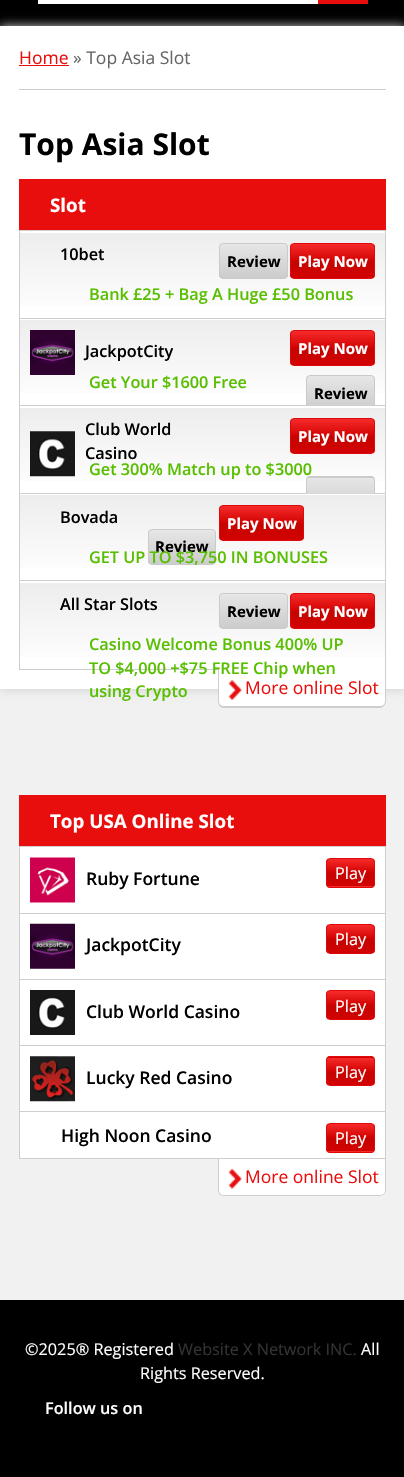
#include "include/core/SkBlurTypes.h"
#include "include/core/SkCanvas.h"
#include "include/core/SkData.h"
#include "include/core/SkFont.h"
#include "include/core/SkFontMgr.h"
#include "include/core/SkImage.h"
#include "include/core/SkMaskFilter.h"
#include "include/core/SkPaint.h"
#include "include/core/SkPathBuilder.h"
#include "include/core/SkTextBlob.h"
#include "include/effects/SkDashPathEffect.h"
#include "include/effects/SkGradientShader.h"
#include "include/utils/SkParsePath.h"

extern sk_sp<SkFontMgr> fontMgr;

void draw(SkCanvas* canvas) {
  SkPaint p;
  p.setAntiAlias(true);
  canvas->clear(SkColorSetRGB(241, 241, 241));
  p.setColor(SK_ColorBLACK);
  canvas->drawRect(SkRect::MakeLTRB(0, 0, 404, 26), p);
  p.setColor(SK_ColorWHITE);
  canvas->drawRect(SkRect::MakeLTRB(38, 0, 318, 4), p);
  p.setColor(SkColorSetRGB(233, 14, 14));
  canvas->drawRect(SkRect::MakeLTRB(318, 0, 368, 4), p);
  p.setColor(SkColorSetRGB(204, 204, 204));
  p.setMaskFilter(SkMaskFilter::MakeBlur(kNormal_SkBlurStyle, 5));
  canvas->drawRect(SkRect::MakeLTRB(0, 26, 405, 689), p);
  p.setMaskFilter(nullptr);
  p.setColor(SK_ColorWHITE);
  canvas->drawRect(SkRect::MakeLTRB(0, 26, 404, 689), p);
  p.setColor(SkColorSetRGB(206, 206, 206));
  canvas->drawRect(SkRect::MakeLTRB(19, 89, 386, 90), p);
  p.setColor(SkColorSetRGB(233, 14, 14));
  canvas->drawRect(SkRect::MakeLTRB(19, 65, 69, 66), p);
  canvas->drawRect(SkRect::MakeLTRB(19, 179, 386, 230), p);
  p.setStyle(SkPaint::kStroke_Style);
  p.setStrokeWidth(1);
  p.setColor(SkColorSetRGB(206, 206, 206));
  canvas->drawRect(SkRect::MakeLTRB(19.5f, 230.5f, 385.5f, 669.5f), p);
  p.setStyle(SkPaint::kFill_Style);
  {
    const SkColor colors[] = {SkColorSetRGB(237, 237, 237), SK_ColorWHITE};
    const float stops[] = {0, 1};
    const SkPoint ends[] = {{203, 232}, {203, 318}};
    p.setShader(SkGradientShader::MakeLinear(ends, colors, stops, 2, SkTileMode::kClamp));
    p.setAlpha(255);
  }
  canvas->drawRect(SkRect::MakeLTRB(20, 233, 385, 306), p);
  p.setShader(nullptr);
  p.setColor(SkColorSetRGB(206, 206, 206));
  canvas->drawRect(SkRect::MakeLTRB(20, 318, 385, 319), p);
  canvas->save();
  canvas->clipPath(SkPathBuilder().moveTo(223, 243).lineTo(284, 243).cubicTo(286, 243, 288, 245, 288, 247).lineTo(288, 275).cubicTo(288, 277, 286, 279, 284, 279).lineTo(223, 279).cubicTo(221, 279, 219, 277, 219, 275).lineTo(219, 247).cubicTo(219, 245, 221, 243, 223, 243).close().detach(), true);
  {
    const SkColor colors[] = {SkColorSetRGB(230, 230, 230), SkColorSetRGB(204, 204, 204)};
    const float stops[] = {0, 1};
    const SkPoint ends[] = {{253, 244}, {253, 278}};
    p.setShader(SkGradientShader::MakeLinear(ends, colors, stops, 2, SkTileMode::kClamp));
    p.setAlpha(255);
  }
  canvas->drawRect(SkRect::MakeLTRB(219, 244, 288, 278), p);
  canvas->restore();
  p.setStyle(SkPaint::kStroke_Style);
  p.setShader(nullptr);
  p.setColor(SkColorSetRGB(202, 202, 202));
  canvas->drawRoundRect(SkRect::MakeLTRB(219.5f, 243.5f, 287.5f, 278.5f), 3.5f, 3.5f, p);
  canvas->save();
  canvas->clipPath(SkPathBuilder().moveTo(294, 243).lineTo(371, 243).cubicTo(373, 243, 375, 245, 375, 247).lineTo(375, 275).cubicTo(375, 277, 373, 279, 371, 279).lineTo(294, 279).cubicTo(292, 279, 290, 277, 290, 275).lineTo(290, 247).cubicTo(290, 245, 292, 243, 294, 243).close().detach(), true);
  p.setStyle(SkPaint::kFill_Style);
  {
    const SkColor colors[] = {SkColorSetRGB(246, 43, 43), SkColorSetRGB(210, 2, 2), SkColorSetRGB(196, 5, 1), SkColorSetRGB(210, 2, 2)};
    const float stops[] = {0, 0.5f, 0.51f, 1};
    const SkPoint ends[] = {{333, 244}, {333, 278}};
    p.setShader(SkGradientShader::MakeLinear(ends, colors, stops, 4, SkTileMode::kClamp));
    p.setAlpha(255);
  }
  canvas->drawRect(SkRect::MakeLTRB(290, 244, 375, 278), p);
  canvas->restore();
  p.setStyle(SkPaint::kStroke_Style);
  p.setShader(nullptr);
  p.setColor(SkColorSetRGB(223, 9, 9));
  canvas->drawRoundRect(SkRect::MakeLTRB(290.5f, 243.5f, 374.5f, 278.5f), 3.5f, 3.5f, p);
  p.setStyle(SkPaint::kFill_Style);
  {
    const SkColor colors[] = {SkColorSetRGB(237, 237, 237), SK_ColorWHITE};
    const float stops[] = {0, 1};
    const SkPoint ends[] = {{203, 320}, {203, 405}};
    p.setShader(SkGradientShader::MakeLinear(ends, colors, stops, 2, SkTileMode::kClamp));
    p.setAlpha(255);
  }
  canvas->drawRect(SkRect::MakeLTRB(20, 320, 385, 393), p);
  p.setShader(nullptr);
  p.setColor(SkColorSetRGB(206, 206, 206));
  canvas->drawRect(SkRect::MakeLTRB(20, 405, 385, 406), p);
  canvas->drawImageRect(SkImages::DeferredFromEncodedData(SkData::MakeFromFileName("images/1.png")), SkRect::MakeLTRB(30, 330, 75, 375), SkSamplingOptions());
  canvas->save();
  canvas->clipPath(SkPathBuilder().moveTo(294, 330).lineTo(371, 330).cubicTo(373, 330, 375, 332, 375, 334).lineTo(375, 362).cubicTo(375, 364, 373, 366, 371, 366).lineTo(294, 366).cubicTo(292, 366, 290, 364, 290, 362).lineTo(290, 334).cubicTo(290, 332, 292, 330, 294, 330).close().detach(), true);
  {
    const SkColor colors[] = {SkColorSetRGB(246, 43, 43), SkColorSetRGB(210, 2, 2), SkColorSetRGB(196, 5, 1), SkColorSetRGB(210, 2, 2)};
    const float stops[] = {0, 0.5f, 0.51f, 1};
    const SkPoint ends[] = {{333, 331}, {333, 365}};
    p.setShader(SkGradientShader::MakeLinear(ends, colors, stops, 4, SkTileMode::kClamp));
    p.setAlpha(255);
  }
  canvas->drawRect(SkRect::MakeLTRB(290, 331, 375, 365), p);
  canvas->restore();
  p.setStyle(SkPaint::kStroke_Style);
  p.setShader(nullptr);
  p.setColor(SkColorSetRGB(223, 9, 9));
  canvas->drawRoundRect(SkRect::MakeLTRB(290.5f, 330.5f, 374.5f, 365.5f), 3.5f, 3.5f, p);
  canvas->save();
  canvas->clipPath(SkPathBuilder().moveTo(310, 375).lineTo(371, 375).cubicTo(373, 375, 375, 377, 375, 379).lineTo(375, 407).cubicTo(375, 409, 373, 411, 371, 411).lineTo(310, 411).cubicTo(308, 411, 306, 409, 306, 407).lineTo(306, 379).cubicTo(306, 377, 308, 375, 310, 375).close().detach(), true);
  p.setStyle(SkPaint::kFill_Style);
  {
    const SkColor colors[] = {SkColorSetRGB(230, 230, 230), SkColorSetRGB(204, 204, 204)};
    const float stops[] = {0, 1};
    const SkPoint ends[] = {{341, 376}, {341, 410}};
    p.setShader(SkGradientShader::MakeLinear(ends, colors, stops, 2, SkTileMode::kClamp));
    p.setAlpha(255);
  }
  canvas->drawRect(SkRect::MakeLTRB(306, 376, 375, 406), p);
  canvas->restore();
  p.setStyle(SkPaint::kStroke_Style);
  p.setShader(nullptr);
  p.setColor(SkColorSetRGB(202, 202, 202));
  canvas->drawRoundRect(SkRect::MakeLTRB(306.5f, 375.5f, 374.5f, 410.5f), 3.5f, 3.5f, p);
  p.setStyle(SkPaint::kFill_Style);
  {
    const SkColor colors[] = {SkColorSetRGB(237, 237, 237), SK_ColorWHITE};
    const float stops[] = {0, 1};
    const SkPoint ends[] = {{203, 323}, {203, 408}};
    p.setShader(SkGradientShader::MakeLinear(ends, colors, stops, 2, SkTileMode::kClamp));
    p.setAlpha(255);
  }
  canvas->drawRect(SkRect::MakeLTRB(306, 406, 375, 408), p);
  {
    const SkColor colors[] = {SkColorSetRGB(237, 237, 237), SK_ColorWHITE};
    const float stops[] = {0, 1};
    const SkPoint ends[] = {{203, 408}, {203, 493}};
    p.setShader(SkGradientShader::MakeLinear(ends, colors, stops, 2, SkTileMode::kClamp));
    p.setAlpha(255);
  }
  canvas->drawRect(SkRect::MakeLTRB(20, 408, 385, 481), p);
  p.setShader(nullptr);
  p.setColor(SkColorSetRGB(206, 206, 206));
  canvas->drawRect(SkRect::MakeLTRB(20, 493, 385, 494), p);
  canvas->drawImageRect(SkImages::DeferredFromEncodedData(SkData::MakeFromFileName("images/2.png")), SkRect::MakeLTRB(30, 431, 75, 477), SkSamplingOptions());
  canvas->save();
  canvas->clipPath(SkPathBuilder().moveTo(294, 418).lineTo(371, 418).cubicTo(373, 418, 375, 420, 375, 422).lineTo(375, 450).cubicTo(375, 452, 373, 454, 371, 454).lineTo(294, 454).cubicTo(292, 454, 290, 452, 290, 450).lineTo(290, 422).cubicTo(290, 420, 292, 418, 294, 418).close().detach(), true);
  {
    const SkColor colors[] = {SkColorSetRGB(246, 43, 43), SkColorSetRGB(210, 2, 2), SkColorSetRGB(196, 5, 1), SkColorSetRGB(210, 2, 2)};
    const float stops[] = {0, 0.5f, 0.51f, 1};
    const SkPoint ends[] = {{333, 419}, {333, 453}};
    p.setShader(SkGradientShader::MakeLinear(ends, colors, stops, 4, SkTileMode::kClamp));
    p.setAlpha(255);
  }
  canvas->drawRect(SkRect::MakeLTRB(290, 419, 375, 453), p);
  canvas->restore();
  p.setStyle(SkPaint::kStroke_Style);
  p.setShader(nullptr);
  p.setColor(SkColorSetRGB(223, 9, 9));
  canvas->drawRoundRect(SkRect::MakeLTRB(290.5f, 418.5f, 374.5f, 453.5f), 3.5f, 3.5f, p);
  canvas->save();
  canvas->clipPath(SkPathBuilder().moveTo(310, 476).lineTo(371, 476).cubicTo(373, 476, 375, 478, 375, 480).lineTo(375, 509).cubicTo(375, 511, 373, 513, 371, 513).lineTo(310, 513).cubicTo(308, 513, 306, 511, 306, 509).lineTo(306, 480).cubicTo(306, 478, 308, 476, 310, 476).close().detach(), true);
  p.setStyle(SkPaint::kFill_Style);
  {
    const SkColor colors[] = {SkColorSetRGB(230, 230, 230), SkColorSetRGB(204, 204, 204)};
    const float stops[] = {0, 1};
    const SkPoint ends[] = {{341, 444}, {341, 478}};
    p.setShader(SkGradientShader::MakeLinear(ends, colors, stops, 2, SkTileMode::kClamp));
    p.setAlpha(255);
  }
  canvas->drawRect(SkRect::MakeLTRB(306, 476, 375, 478), p);
  canvas->restore();
  {
    const SkColor colors[] = {SkColorSetRGB(230, 230, 230), SkColorSetRGB(204, 204, 204)};
    const float stops[] = {0, 1};
    const SkPoint ends[] = {{341, 478}, {341, 511}};
    p.setShader(SkGradientShader::MakeLinear(ends, colors, stops, 2, SkTileMode::kClamp));
    p.setAlpha(255);
  }
  canvas->drawRect(SkRect::MakeLTRB(306, 478, 375, 494), p);
  p.setStyle(SkPaint::kStroke_Style);
  p.setShader(nullptr);
  p.setColor(SkColorSetRGB(202, 202, 202));
  canvas->drawRoundRect(SkRect::MakeLTRB(306.5f, 476.5f, 374.5f, 512.5f), 3.5f, 3.5f, p);
  p.setStyle(SkPaint::kFill_Style);
  {
    const SkColor colors[] = {SkColorSetRGB(237, 237, 237), SK_ColorWHITE};
    const float stops[] = {0, 1};
    const SkPoint ends[] = {{203, 410}, {203, 495}};
    p.setShader(SkGradientShader::MakeLinear(ends, colors, stops, 2, SkTileMode::kClamp));
    p.setAlpha(255);
  }
  canvas->drawRect(SkRect::MakeLTRB(306, 494, 375, 495), p);
  {
    const SkColor colors[] = {SkColorSetRGB(237, 237, 237), SK_ColorWHITE};
    const float stops[] = {0, 1};
    const SkPoint ends[] = {{203, 495}, {203, 580}};
    p.setShader(SkGradientShader::MakeLinear(ends, colors, stops, 2, SkTileMode::kClamp));
    p.setAlpha(255);
  }
  canvas->drawRect(SkRect::MakeLTRB(20, 495, 385, 568), p);
  p.setShader(nullptr);
  p.setColor(SkColorSetRGB(206, 206, 206));
  canvas->drawRect(SkRect::MakeLTRB(20, 580, 385, 581), p);
  canvas->save();
  canvas->clipPath(SkPathBuilder().moveTo(223, 505).lineTo(300, 505).cubicTo(302, 505, 304, 507, 304, 509).lineTo(304, 537).cubicTo(304, 539, 302, 541, 300, 541).lineTo(223, 541).cubicTo(221, 541, 219, 539, 219, 537).lineTo(219, 509).cubicTo(219, 507, 221, 505, 223, 505).close().detach(), true);
  {
    const SkColor colors[] = {SkColorSetRGB(246, 43, 43), SkColorSetRGB(210, 2, 2), SkColorSetRGB(196, 5, 1), SkColorSetRGB(210, 2, 2)};
    const float stops[] = {0, 0.5f, 0.51f, 1};
    const SkPoint ends[] = {{261, 506}, {261, 540}};
    p.setShader(SkGradientShader::MakeLinear(ends, colors, stops, 4, SkTileMode::kClamp));
    p.setAlpha(255);
  }
  canvas->drawRect(SkRect::MakeLTRB(219, 506, 304, 540), p);
  canvas->restore();
  p.setStyle(SkPaint::kStroke_Style);
  p.setShader(nullptr);
  p.setColor(SkColorSetRGB(223, 9, 9));
  canvas->drawRoundRect(SkRect::MakeLTRB(219.5f, 505.5f, 303.5f, 540.5f), 3.5f, 3.5f, p);
  canvas->save();
  canvas->clipPath(SkPathBuilder().moveTo(152, 529).lineTo(212, 529).cubicTo(214, 529, 216, 531, 216, 533).lineTo(216, 561).cubicTo(216, 563, 214, 565, 212, 565).lineTo(152, 565).cubicTo(150, 565, 148, 563, 148, 561).lineTo(148, 533).cubicTo(148, 531, 150, 529, 152, 529).close().detach(), true);
  p.setStyle(SkPaint::kFill_Style);
  {
    const SkColor colors[] = {SkColorSetRGB(230, 230, 230), SkColorSetRGB(204, 204, 204)};
    const float stops[] = {0, 1};
    const SkPoint ends[] = {{182, 530}, {182, 564}};
    p.setShader(SkGradientShader::MakeLinear(ends, colors, stops, 2, SkTileMode::kClamp));
    p.setAlpha(255);
  }
  canvas->drawRect(SkRect::MakeLTRB(148, 530, 216, 564), p);
  canvas->restore();
  p.setStyle(SkPaint::kStroke_Style);
  p.setShader(nullptr);
  p.setColor(SkColorSetRGB(202, 202, 202));
  canvas->drawRoundRect(SkRect::MakeLTRB(148.5f, 529.5f, 215.5f, 564.5f), 3.5f, 3.5f, p);
  p.setStyle(SkPaint::kFill_Style);
  {
    const SkColor colors[] = {SkColorSetRGB(237, 237, 237), SK_ColorWHITE};
    const float stops[] = {0, 1};
    const SkPoint ends[] = {{203, 583}, {203, 669}};
    p.setShader(SkGradientShader::MakeLinear(ends, colors, stops, 2, SkTileMode::kClamp));
    p.setAlpha(255);
  }
  canvas->drawRect(SkRect::MakeLTRB(20, 583, 385, 657), p);
  canvas->save();
  canvas->clipPath(SkPathBuilder().moveTo(223, 593).lineTo(284, 593).cubicTo(286, 593, 288, 595, 288, 597).lineTo(288, 625).cubicTo(288, 627, 286, 629, 284, 629).lineTo(223, 629).cubicTo(221, 629, 219, 627, 219, 625).lineTo(219, 597).cubicTo(219, 595, 221, 593, 223, 593).close().detach(), true);
  {
    const SkColor colors[] = {SkColorSetRGB(230, 230, 230), SkColorSetRGB(204, 204, 204)};
    const float stops[] = {0, 1};
    const SkPoint ends[] = {{253, 594}, {253, 628}};
    p.setShader(SkGradientShader::MakeLinear(ends, colors, stops, 2, SkTileMode::kClamp));
    p.setAlpha(255);
  }
  canvas->drawRect(SkRect::MakeLTRB(219, 594, 288, 628), p);
  canvas->restore();
  p.setStyle(SkPaint::kStroke_Style);
  p.setShader(nullptr);
  p.setColor(SkColorSetRGB(202, 202, 202));
  canvas->drawRoundRect(SkRect::MakeLTRB(219.5f, 593.5f, 287.5f, 628.5f), 3.5f, 3.5f, p);
  canvas->save();
  canvas->clipPath(SkPathBuilder().moveTo(294, 593).lineTo(371, 593).cubicTo(373, 593, 375, 595, 375, 597).lineTo(375, 625).cubicTo(375, 627, 373, 629, 371, 629).lineTo(294, 629).cubicTo(292, 629, 290, 627, 290, 625).lineTo(290, 597).cubicTo(290, 595, 292, 593, 294, 593).close().detach(), true);
  p.setStyle(SkPaint::kFill_Style);
  {
    const SkColor colors[] = {SkColorSetRGB(246, 43, 43), SkColorSetRGB(210, 2, 2), SkColorSetRGB(196, 5, 1), SkColorSetRGB(210, 2, 2)};
    const float stops[] = {0, 0.5f, 0.51f, 1};
    const SkPoint ends[] = {{333, 594}, {333, 628}};
    p.setShader(SkGradientShader::MakeLinear(ends, colors, stops, 4, SkTileMode::kClamp));
    p.setAlpha(255);
  }
  canvas->drawRect(SkRect::MakeLTRB(290, 594, 375, 628), p);
  canvas->restore();
  p.setStyle(SkPaint::kStroke_Style);
  p.setShader(nullptr);
  p.setColor(SkColorSetRGB(223, 9, 9));
  canvas->drawRoundRect(SkRect::MakeLTRB(290.5f, 593.5f, 374.5f, 628.5f), 3.5f, 3.5f, p);
  p.setStyle(SkPaint::kFill_Style);
  p.setColor(SK_ColorWHITE);
  canvas->drawPath(SkPathBuilder().moveTo(218, 669).lineTo(386, 669).lineTo(386, 702).cubicTo(386, 705.5f, 383.5f, 708, 380, 708).lineTo(224, 708).cubicTo(220.5f, 708, 218, 705.5f, 218, 702).close().detach(), p);
  p.setColor(SkColorSetRGB(206, 206, 206));
  canvas->drawPath(SkPathBuilder(SkPathFillType::kEvenOdd).moveTo(218, 669).lineTo(386, 669).lineTo(386, 701).cubicTo(386, 705, 383, 708, 380, 708).lineTo(224, 708).cubicTo(220, 708, 218, 705, 218, 701).close().moveTo(219, 669).lineTo(385, 669).lineTo(385, 701).cubicTo(385, 704, 383, 706, 380, 706).lineTo(224, 706).cubicTo(221, 706, 219, 704, 219, 701).close().detach(), p);
  canvas->drawImageRect(SkImages::DeferredFromEncodedData(SkData::MakeFromFileName("images/3.png")), SkRect::MakeLTRB(228, 680, 242, 700), SkSamplingOptions());
  p.setColor(SK_ColorWHITE);
  canvas->drawRect(SkRect::MakeLTRB(20, 847, 385, 1158), p);
  p.setColor(SkColorSetRGB(233, 14, 14));
  canvas->drawRect(SkRect::MakeLTRB(19, 795, 386, 846), p);
  p.setColor(SK_ColorWHITE);
  canvas->drawPath(SkPathBuilder().moveTo(218, 1158).lineTo(386, 1158).lineTo(386, 1190).cubicTo(386, 1193.5f, 383.5f, 1196, 380, 1196).lineTo(224, 1196).cubicTo(220.5f, 1196, 218, 1193.5f, 218, 1190).close().detach(), p);
  p.setColor(SkColorSetRGB(206, 206, 206));
  canvas->drawPath(SkPathBuilder(SkPathFillType::kEvenOdd).moveTo(218, 1158).lineTo(386, 1158).lineTo(386, 1190).cubicTo(386, 1193, 383, 1196, 380, 1196).lineTo(224, 1196).cubicTo(220, 1196, 218, 1193, 218, 1190).close().moveTo(219, 1158).lineTo(385, 1158).lineTo(385, 1190).cubicTo(385, 1193, 383, 1195, 380, 1195).lineTo(224, 1195).cubicTo(221, 1195, 219, 1193, 219, 1190).close().detach(), p);
  canvas->drawRect(SkRect::MakeLTRB(385, 846, 386, 1159), p);
  canvas->drawRect(SkRect::MakeLTRB(19, 1158, 386, 1159), p);
  canvas->drawRect(SkRect::MakeLTRB(19, 846, 20, 1159), p);
  canvas->drawRect(SkRect::MakeLTRB(20, 846, 385, 847), p);
  canvas->drawImageRect(SkImages::DeferredFromEncodedData(SkData::MakeFromFileName("images/4.png")), SkRect::MakeLTRB(30, 857, 75, 903), SkSamplingOptions());
  canvas->save();
  canvas->clipPath(SkPathBuilder().moveTo(330, 858).lineTo(371, 858).cubicTo(373, 858, 375, 860, 375, 862).lineTo(375, 884).cubicTo(375, 886, 373, 888, 371, 888).lineTo(330, 888).cubicTo(328, 888, 326, 886, 326, 884).lineTo(326, 862).cubicTo(326, 860, 328, 858, 330, 858).close().detach(), true);
  {
    const SkColor colors[] = {SkColorSetRGB(246, 43, 43), SkColorSetRGB(210, 2, 2), SkColorSetRGB(196, 5, 1), SkColorSetRGB(210, 2, 2)};
    const float stops[] = {0, 0.5f, 0.51f, 1};
    const SkPoint ends[] = {{351, 859}, {351, 886}};
    p.setShader(SkGradientShader::MakeLinear(ends, colors, stops, 4, SkTileMode::kClamp));
    p.setAlpha(255);
  }
  canvas->drawRect(SkRect::MakeLTRB(326, 859, 375, 886), p);
  {
    const SkColor colors[] = {SkColorSetRGB(246, 43, 43), SkColorSetRGB(210, 2, 2), SkColorSetRGB(196, 5, 1), SkColorSetRGB(210, 2, 2)};
    const float stops[] = {0, 0.5f, 0.51f, 1};
    const SkPoint ends[] = {{351, 886}, {351, 914}};
    p.setShader(SkGradientShader::MakeLinear(ends, colors, stops, 4, SkTileMode::kClamp));
    p.setAlpha(255);
  }
  canvas->drawRect(SkRect::MakeLTRB(326, 886, 375, 888), p);
  canvas->restore();
  p.setStyle(SkPaint::kStroke_Style);
  p.setShader(nullptr);
  p.setColor(SkColorSetRGB(223, 9, 9));
  canvas->drawRoundRect(SkRect::MakeLTRB(326.5f, 858.5f, 374.5f, 887.5f), 3.5f, 3.5f, p);
  p.setStyle(SkPaint::kFill_Style);
  p.setColor(SkColorSetRGB(206, 206, 206));
  canvas->drawRect(SkRect::MakeLTRB(20, 913, 385, 914), p);
  canvas->drawImageRect(SkImages::DeferredFromEncodedData(SkData::MakeFromFileName("images/5.png")), SkRect::MakeLTRB(30, 923, 75, 969), SkSamplingOptions());
  canvas->save();
  canvas->clipPath(SkPathBuilder().moveTo(330, 924).lineTo(371, 924).cubicTo(373, 924, 375, 926, 375, 928).lineTo(375, 950).cubicTo(375, 952, 373, 954, 371, 954).lineTo(330, 954).cubicTo(328, 954, 326, 952, 326, 950).lineTo(326, 928).cubicTo(326, 926, 328, 924, 330, 924).close().detach(), true);
  {
    const SkColor colors[] = {SkColorSetRGB(246, 43, 43), SkColorSetRGB(210, 2, 2), SkColorSetRGB(196, 5, 1), SkColorSetRGB(210, 2, 2)};
    const float stops[] = {0, 0.5f, 0.51f, 1};
    const SkPoint ends[] = {{351, 925}, {351, 953}};
    p.setShader(SkGradientShader::MakeLinear(ends, colors, stops, 4, SkTileMode::kClamp));
    p.setAlpha(255);
  }
  canvas->drawRect(SkRect::MakeLTRB(326, 925, 375, 953), p);
  canvas->restore();
  p.setStyle(SkPaint::kStroke_Style);
  p.setShader(nullptr);
  p.setColor(SkColorSetRGB(223, 9, 9));
  canvas->drawRoundRect(SkRect::MakeLTRB(326.5f, 924.5f, 374.5f, 953.5f), 3.5f, 3.5f, p);
  p.setStyle(SkPaint::kFill_Style);
  p.setColor(SkColorSetRGB(206, 206, 206));
  canvas->drawRect(SkRect::MakeLTRB(20, 979, 385, 980), p);
  canvas->drawImageRect(SkImages::DeferredFromEncodedData(SkData::MakeFromFileName("images/6.png")), SkRect::MakeLTRB(30, 990, 75, 1035), SkSamplingOptions());
  canvas->save();
  canvas->clipPath(SkPathBuilder().moveTo(330, 990).lineTo(371, 990).cubicTo(373, 990, 375, 992, 375, 994).lineTo(375, 1016).cubicTo(375, 1018, 373, 1020, 371, 1020).lineTo(330, 1020).cubicTo(328, 1020, 326, 1018, 326, 1016).lineTo(326, 994).cubicTo(326, 992, 328, 990, 330, 990).close().detach(), true);
  {
    const SkColor colors[] = {SkColorSetRGB(246, 43, 43), SkColorSetRGB(210, 2, 2), SkColorSetRGB(196, 5, 1), SkColorSetRGB(210, 2, 2)};
    const float stops[] = {0, 0.5f, 0.51f, 1};
    const SkPoint ends[] = {{351, 991}, {351, 1019}};
    p.setShader(SkGradientShader::MakeLinear(ends, colors, stops, 4, SkTileMode::kClamp));
    p.setAlpha(255);
  }
  canvas->drawRect(SkRect::MakeLTRB(326, 991, 375, 1019), p);
  canvas->restore();
  p.setStyle(SkPaint::kStroke_Style);
  p.setShader(nullptr);
  p.setColor(SkColorSetRGB(223, 9, 9));
  canvas->drawRoundRect(SkRect::MakeLTRB(326.5f, 990.5f, 374.5f, 1019.5f), 3.5f, 3.5f, p);
  p.setStyle(SkPaint::kFill_Style);
  p.setColor(SkColorSetRGB(206, 206, 206));
  canvas->drawRect(SkRect::MakeLTRB(20, 1045, 385, 1046), p);
  canvas->drawImageRect(SkImages::DeferredFromEncodedData(SkData::MakeFromFileName("images/7.png")), SkRect::MakeLTRB(30, 1056, 75, 1102), SkSamplingOptions());
  canvas->save();
  canvas->clipPath(SkPathBuilder().moveTo(330, 1056).lineTo(371, 1056).cubicTo(373, 1056, 375, 1058, 375, 1060).lineTo(375, 1082).cubicTo(375, 1084, 373, 1086, 371, 1086).lineTo(330, 1086).cubicTo(328, 1086, 326, 1084, 326, 1082).lineTo(326, 1060).cubicTo(326, 1058, 328, 1056, 330, 1056).close().detach(), true);
  {
    const SkColor colors[] = {SkColorSetRGB(246, 43, 43), SkColorSetRGB(210, 2, 2), SkColorSetRGB(196, 5, 1), SkColorSetRGB(210, 2, 2)};
    const float stops[] = {0, 0.5f, 0.51f, 1};
    const SkPoint ends[] = {{351, 1030}, {351, 1058}};
    p.setShader(SkGradientShader::MakeLinear(ends, colors, stops, 4, SkTileMode::kClamp));
    p.setAlpha(255);
  }
  canvas->drawRect(SkRect::MakeLTRB(326, 1056, 375, 1058), p);
  {
    const SkColor colors[] = {SkColorSetRGB(246, 43, 43), SkColorSetRGB(210, 2, 2), SkColorSetRGB(196, 5, 1), SkColorSetRGB(210, 2, 2)};
    const float stops[] = {0, 0.5f, 0.51f, 1};
    const SkPoint ends[] = {{351, 1058}, {351, 1085}};
    p.setShader(SkGradientShader::MakeLinear(ends, colors, stops, 4, SkTileMode::kClamp));
    p.setAlpha(255);
  }
  canvas->drawRect(SkRect::MakeLTRB(326, 1058, 375, 1085), p);
  canvas->restore();
  p.setStyle(SkPaint::kStroke_Style);
  p.setShader(nullptr);
  p.setColor(SkColorSetRGB(223, 9, 9));
  canvas->drawRoundRect(SkRect::MakeLTRB(326.5f, 1056.5f, 374.5f, 1085.5f), 3.5f, 3.5f, p);
  p.setStyle(SkPaint::kFill_Style);
  p.setColor(SkColorSetRGB(206, 206, 206));
  canvas->drawRect(SkRect::MakeLTRB(20, 1111, 385, 1112), p);
  canvas->save();
  canvas->clipPath(SkPathBuilder().moveTo(330, 1123).lineTo(371, 1123).cubicTo(373, 1123, 375, 1125, 375, 1127).lineTo(375, 1149).cubicTo(375, 1151, 373, 1153, 371, 1153).lineTo(330, 1153).cubicTo(328, 1153, 326, 1151, 326, 1149).lineTo(326, 1127).cubicTo(326, 1125, 328, 1123, 330, 1123).close().detach(), true);
  {
    const SkColor colors[] = {SkColorSetRGB(246, 43, 43), SkColorSetRGB(210, 2, 2), SkColorSetRGB(196, 5, 1), SkColorSetRGB(210, 2, 2)};
    const float stops[] = {0, 0.5f, 0.51f, 1};
    const SkPoint ends[] = {{351, 1124}, {351, 1151}};
    p.setShader(SkGradientShader::MakeLinear(ends, colors, stops, 4, SkTileMode::kClamp));
    p.setAlpha(255);
  }
  canvas->drawRect(SkRect::MakeLTRB(326, 1124, 375, 1151), p);
  {
    const SkColor colors[] = {SkColorSetRGB(246, 43, 43), SkColorSetRGB(210, 2, 2), SkColorSetRGB(196, 5, 1), SkColorSetRGB(210, 2, 2)};
    const float stops[] = {0, 0.5f, 0.51f, 1};
    const SkPoint ends[] = {{351, 1151}, {351, 1179}};
    p.setShader(SkGradientShader::MakeLinear(ends, colors, stops, 4, SkTileMode::kClamp));
    p.setAlpha(255);
  }
  canvas->drawRect(SkRect::MakeLTRB(326, 1151, 375, 1153), p);
  canvas->restore();
  p.setStyle(SkPaint::kStroke_Style);
  p.setShader(nullptr);
  p.setColor(SkColorSetRGB(223, 9, 9));
  canvas->drawRoundRect(SkRect::MakeLTRB(326.5f, 1123.5f, 374.5f, 1152.5f), 3.5f, 3.5f, p);
  canvas->drawImageRect(SkImages::DeferredFromEncodedData(SkData::MakeFromFileName("images/8.png")), SkRect::MakeLTRB(228, 1168, 242, 1189), SkSamplingOptions());
  p.setStyle(SkPaint::kFill_Style);
  p.setColor(SK_ColorBLACK);
  canvas->drawRect(SkRect::MakeLTRB(0, 1300, 404, 1477), p);
  SkFont font1(fontMgr->matchFamilyStyle("Open Sans", SkFontStyle::Normal()), 17.5f);
  font1.setSubpixel(true);
  p.setColor(SkColorSetRGB(233, 14, 14));
  canvas->drawString("Home", 19, 64, font1, p);
  p.setColor(SkColorSetRGB(102, 102, 102));
  canvas->drawString("» Top Asia Slot", 73, 64, font1, p);
  SkFont font2(fontMgr->matchFamilyStyle("Open Sans", SkFontStyle::Bold()), 30);
  font2.setSubpixel(true);
  p.setColor(SK_ColorBLACK);
  canvas->drawString("Top Asia Slot", 19, 155, font2, p);
  SkFont font3(fontMgr->matchFamilyStyle("Open Sans", SkFontStyle::Bold()), 18.75f);
  font3.setSubpixel(true);
  p.setColor(SK_ColorWHITE);
  canvas->drawString("Slot", 50, 212, font3, p);
  SkFont font4(fontMgr->matchFamilyStyle("Open Sans", SkFontStyle(600, SkFontStyle::kNormal_Width, SkFontStyle::kUpright_Slant)), 16.25f);
  font4.setSubpixel(true);
  p.setColor(SK_ColorBLACK);
  canvas->drawString("10bet", 60, 260, font4, p);
  SkFont font5(fontMgr->matchFamilyStyle("Open Sans", SkFontStyle::Bold()), 15);
  font5.setSubpixel(true);
  canvas->drawString("Review", 227, 267, font5, p);
  p.setColor(SK_ColorWHITE);
  canvas->drawString("Play Now", 298, 267, font5, p);
  p.setColor(SkColorSetRGB(88, 191, 0));
  canvas->drawString("Bank £25 + Bag A Huge £50 Bonus", 89, 300, font4, p);
  p.setColor(SK_ColorBLACK);
  canvas->drawString("JackpotCity", 85, 357, font4, p);
  p.setColor(SK_ColorWHITE);
  canvas->drawString("Play Now", 298, 354, font5, p);
  p.setColor(SkColorSetRGB(88, 191, 0));
  canvas->drawString("Get Your $1600 Free", 89, 388, font4, p);
  p.setColor(SK_ColorBLACK);
  canvas->drawString("Review", 314, 399, font5, p);
  canvas->drawString("Club World", 85, 435, font4, p);
  canvas->drawString("Casino", 85, 459, font4, p);
  p.setColor(SK_ColorWHITE);
  canvas->drawString("Play Now", 298, 442, font5, p);
  p.setColor(SkColorSetRGB(88, 191, 0));
  canvas->drawString("Get 300% Match up to $3000", 89, 475, font4, p);
  p.setColor(SK_ColorBLACK);
  canvas->drawString("Bovada", 60, 523, font4, p);
  p.setColor(SK_ColorWHITE);
  canvas->drawString("Play Now", 227, 529, font5, p);
  p.setColor(SK_ColorBLACK);
  canvas->drawString("Review", 155, 552, font5, p);
  p.setColor(SkColorSetRGB(88, 191, 0));
  canvas->drawString("GET UP TO $3,750 IN BONUSES", 89, 563, font4, p);
  p.setColor(SK_ColorBLACK);
  canvas->drawString("All Star Slots", 60, 610, font4, p);
  canvas->drawString("Review", 227, 617, font5, p);
  p.setColor(SK_ColorWHITE);
  canvas->drawString("Play Now", 298, 617, font5, p);
  p.setColor(SkColorSetRGB(88, 191, 0));
  canvas->drawString("Casino Welcome Bonus 400% UP", 89, 650, font4, p);
  canvas->drawString("TO $4,000 +$75 FREE Chip when", 89, 674, font4, p);
  canvas->drawString("using Crypto", 89, 697, font4, p);
  p.setColor(SkColorSetRGB(233, 14, 14));
  canvas->drawString("More online Slot", 245, 694, font1, p);
  p.setColor(SK_ColorWHITE);
  canvas->drawString("Top USA Online Slot", 50, 828, font3, p);
  SkFont font6(fontMgr->matchFamilyStyle("Open Sans", SkFontStyle(600, SkFontStyle::kNormal_Width, SkFontStyle::kUpright_Slant)), 17.5f);
  font6.setSubpixel(true);
  p.setColor(SK_ColorBLACK);
  canvas->drawString("Ruby Fortune", 86, 885, font6, p);
  SkFont font7(fontMgr->matchFamilyStyle("Open Sans", SkFontStyle::Normal()), 16.25f);
  font7.setSubpixel(true);
  p.setColor(SK_ColorWHITE);
  canvas->drawString("Play", 335, 879, font7, p);
  p.setColor(SK_ColorBLACK);
  canvas->drawString("JackpotCity", 86, 951, font6, p);
  p.setColor(SK_ColorWHITE);
  canvas->drawString("Play", 335, 945, font7, p);
  p.setColor(SK_ColorBLACK);
  canvas->drawString("Club World Casino", 86, 1018, font6, p);
  p.setColor(SK_ColorWHITE);
  canvas->drawString("Play", 335, 1012, font7, p);
  p.setColor(SK_ColorBLACK);
  canvas->drawString("Lucky Red Casino", 86, 1084, font6, p);
  p.setColor(SK_ColorWHITE);
  canvas->drawString("Play", 335, 1078, font7, p);
  p.setColor(SK_ColorBLACK);
  canvas->drawString("High Noon Casino", 61, 1142, font6, p);
  p.setColor(SK_ColorWHITE);
  canvas->drawString("Play", 335, 1144, font7, p);
  p.setColor(SkColorSetRGB(233, 14, 14));
  canvas->drawString("More online Slot", 245, 1183, font1, p);
  p.setColor(SK_ColorWHITE);
  canvas->drawString("©2025® Registered", 25, 1355, font7, p);
  p.setColor(SkColorSetRGB(51, 51, 51));
  canvas->drawString("Website X Network INC.", 178, 1355, font7, p);
  p.setColor(SK_ColorWHITE);
  canvas->drawString("All", 361, 1355, font7, p);
  canvas->drawString("Rights Reserved.", 140, 1379, font7, p);
  canvas->drawString("Follow us on", 45, 1414, font4, p);
}
